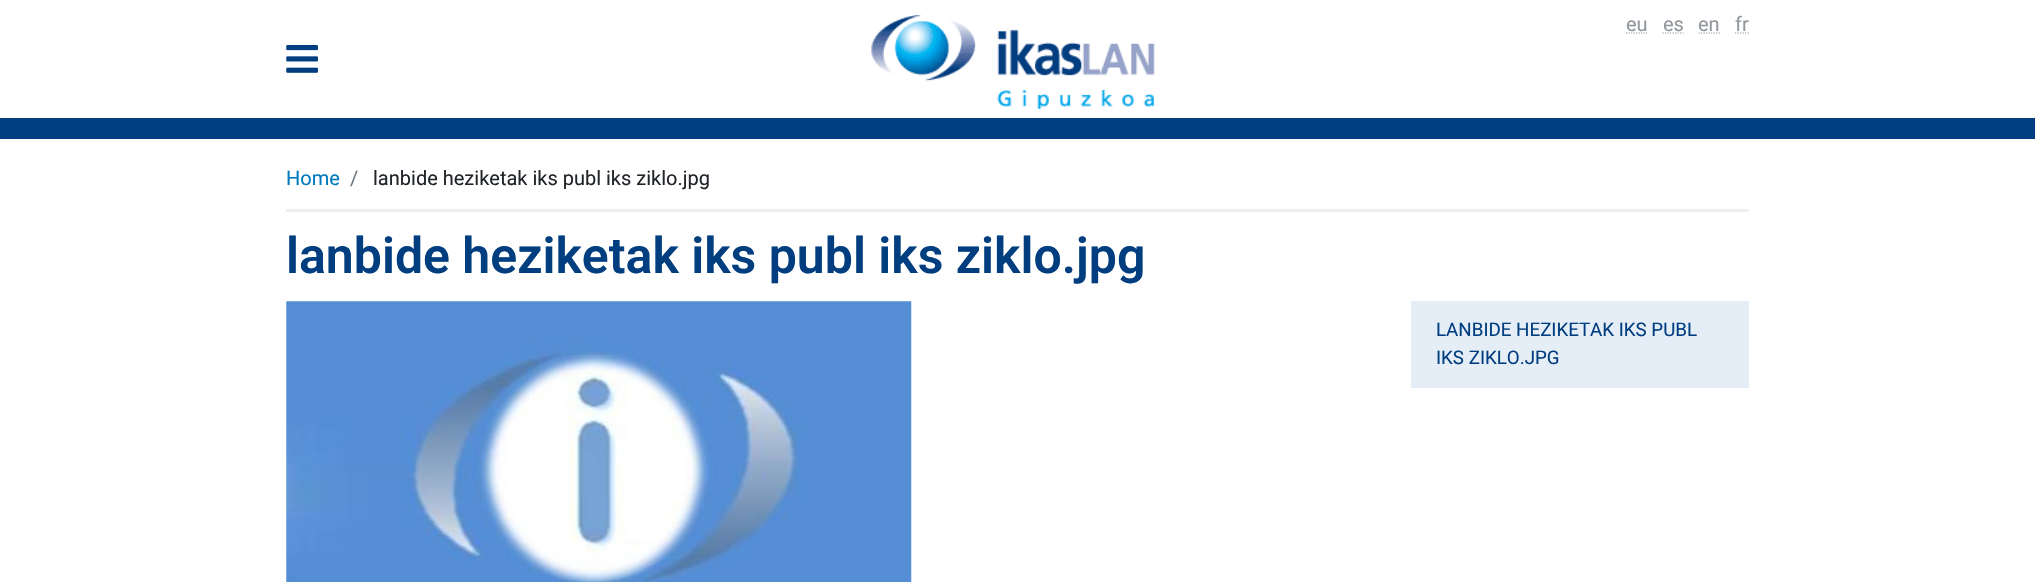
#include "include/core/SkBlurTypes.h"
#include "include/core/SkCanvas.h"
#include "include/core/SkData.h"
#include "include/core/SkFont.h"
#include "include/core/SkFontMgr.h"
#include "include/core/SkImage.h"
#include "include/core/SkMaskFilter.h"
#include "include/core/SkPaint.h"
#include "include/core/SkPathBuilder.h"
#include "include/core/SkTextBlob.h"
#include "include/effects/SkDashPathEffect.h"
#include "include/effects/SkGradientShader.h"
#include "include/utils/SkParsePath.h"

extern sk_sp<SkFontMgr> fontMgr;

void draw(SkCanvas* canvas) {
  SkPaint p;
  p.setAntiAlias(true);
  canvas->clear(SK_ColorWHITE);
  canvas->drawImageRect(SkImages::DeferredFromEncodedData(SkData::MakeFromFileName("images/1.png")), SkRect::MakeLTRB(871, 14, 1155, 109), SkSamplingOptions());
  p.setStyle(SkPaint::kStroke_Style);
  p.setStrokeWidth(1.2f);
  p.setColor(SkColorSetRGB(145, 151, 157));
  p.setPathEffect(SkDashPathEffect::Make({{1.25f, 1.25f}}, 0));
  canvas->drawPath(SkPathBuilder().moveTo(1626, 33).lineTo(1647.5f, 33).detach(), p);
  p.setPathEffect(nullptr);
  p.setPathEffect(SkDashPathEffect::Make({{1.25f, 1.25f}}, 0));
  canvas->drawPath(SkPathBuilder().moveTo(1662.5f, 33).lineTo(1683.5f, 33).detach(), p);
  p.setPathEffect(nullptr);
  p.setPathEffect(SkDashPathEffect::Make({{1.25f, 1.25f}}, 0));
  canvas->drawPath(SkPathBuilder().moveTo(1698.5f, 33).lineTo(1720, 33).detach(), p);
  p.setPathEffect(nullptr);
  p.setPathEffect(SkDashPathEffect::Make({{1.25f, 1.25f}}, 0));
  canvas->drawPath(SkPathBuilder().moveTo(1735, 33).lineTo(1749, 33).detach(), p);
  p.setPathEffect(nullptr);
  canvas->drawImageRect(SkImages::DeferredFromEncodedData(SkData::MakeFromFileName("images/2.png")), SkRect::MakeLTRB(286, 45, 318, 73), SkSamplingOptions());
  p.setStyle(SkPaint::kFill_Style);
  p.setColor(SkColorSetRGB(0, 62, 128));
  canvas->drawRect(SkRect::MakeLTRB(0, 118, 2035, 139), p);
  p.setColor(SkColorSetRGB(239, 239, 239));
  canvas->drawRect(SkRect::MakeLTRB(286, 209, 1749, 212), p);
  canvas->drawImageRect(SkImages::DeferredFromEncodedData(SkData::MakeFromFileName("images/3.png")), SkRect::MakeLTRB(286, 301, 912, 582), SkSamplingOptions());
  p.setColor(SkColorSetRGB(229, 237, 246));
  canvas->drawRect(SkRect::MakeLTRB(1411, 301, 1749, 388), p);
  SkFont font1(fontMgr->matchFamilyStyle("Roboto", SkFontStyle::Normal()), 20);
  font1.setSubpixel(true);
  p.setColor(SkColorSetRGB(145, 151, 157));
  canvas->drawString("eu", 1626, 31, font1, p);
  canvas->drawString("es", 1663, 31, font1, p);
  canvas->drawString("en", 1698, 31, font1, p);
  canvas->drawString("fr", 1735, 31, font1, p);
  p.setColor(SkColorSetRGB(0, 122, 189));
  canvas->drawString("Home", 286, 185, font1, p);
  p.setColor(SkColorSetRGB(108, 117, 125));
  canvas->drawString("/", 350, 185, font1, p);
  p.setColor(SkColorSetRGB(33, 37, 41));
  canvas->drawString("lanbide heziketak iks publ iks ziklo.jpg", 373, 185, font1, p);
  SkFont font2(fontMgr->matchFamilyStyle("Roboto", SkFontStyle(600, SkFontStyle::kNormal_Width, SkFontStyle::kUpright_Slant)), 50);
  font2.setSubpixel(true);
  p.setColor(SkColorSetRGB(0, 62, 128));
  canvas->drawString("lanbide heziketak iks publ iks ziklo.jpg", 286, 273, font2, p);
  SkFont font3(fontMgr->matchFamilyStyle("Roboto", SkFontStyle::Normal()), 18.75f);
  font3.setSubpixel(true);
  canvas->drawString("LANBIDE HEZIKETAK IKS PUBL", 1436, 336, font3, p);
  canvas->drawString("IKS ZIKLO.JPG", 1436, 364, font3, p);
}
